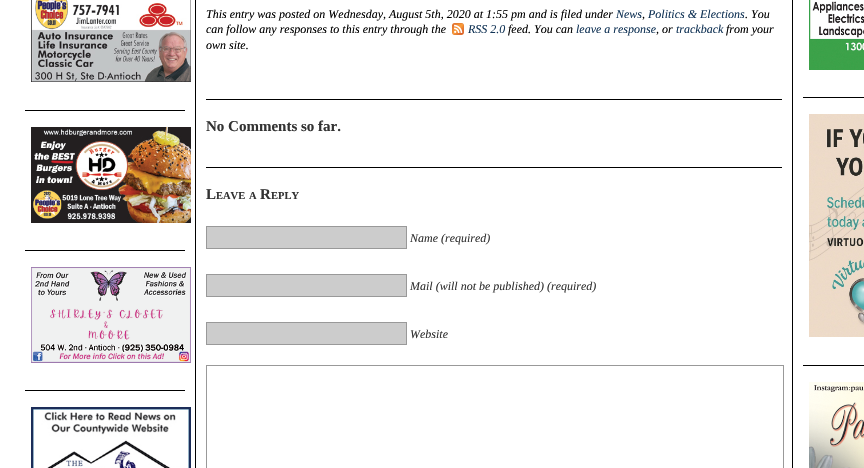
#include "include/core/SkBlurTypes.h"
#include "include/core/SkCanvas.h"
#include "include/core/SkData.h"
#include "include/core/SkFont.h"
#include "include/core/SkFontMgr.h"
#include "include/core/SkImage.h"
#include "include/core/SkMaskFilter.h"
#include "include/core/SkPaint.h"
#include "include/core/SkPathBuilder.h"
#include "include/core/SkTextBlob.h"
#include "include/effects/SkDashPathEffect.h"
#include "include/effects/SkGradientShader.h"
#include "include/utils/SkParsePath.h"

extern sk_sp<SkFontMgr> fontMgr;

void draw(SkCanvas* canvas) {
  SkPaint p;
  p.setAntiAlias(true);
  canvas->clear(SK_ColorWHITE);
  p.setColor(SK_ColorBLACK);
  canvas->drawRect(SkRect::MakeLTRB(195, 0, 196, 468), p);
  canvas->drawRect(SkRect::MakeLTRB(25, 110, 185, 111), p);
  canvas->drawImageRect(SkImages::DeferredFromEncodedData(SkData::MakeFromFileName("images/1.png")), SkRect::MakeLTRB(31, 0, 191, 82), SkSamplingOptions());
  canvas->drawRect(SkRect::MakeLTRB(25, 250, 185, 251), p);
  canvas->drawImageRect(SkImages::DeferredFromEncodedData(SkData::MakeFromFileName("images/2.png")), SkRect::MakeLTRB(31, 127, 191, 223), SkSamplingOptions());
  canvas->drawRect(SkRect::MakeLTRB(25, 390, 185, 391), p);
  canvas->drawImageRect(SkImages::DeferredFromEncodedData(SkData::MakeFromFileName("images/3.png")), SkRect::MakeLTRB(31, 267, 191, 363), SkSamplingOptions());
  canvas->drawImageRect(SkImages::DeferredFromEncodedData(SkData::MakeFromFileName("images/4.png")), SkRect::MakeLTRB(31, 407, 191, 468), SkSamplingOptions());
  canvas->drawRect(SkRect::MakeLTRB(792, 0, 793, 468), p);
  canvas->drawRect(SkRect::MakeLTRB(206, 99, 782, 100), p);
  canvas->drawImageRect(SkImages::DeferredFromEncodedData(SkData::MakeFromFileName("images/5.png")), SkRect::MakeLTRB(452, 23, 464, 35), SkSamplingOptions());
  canvas->drawRect(SkRect::MakeLTRB(206, 167, 782, 168), p);
  p.setColor(SkColorSetRGB(204, 204, 204));
  canvas->drawRect(SkRect::MakeLTRB(206.5f, 226.5f, 406.5f, 248.5f), p);
  p.setStyle(SkPaint::kStroke_Style);
  p.setStrokeWidth(1);
  p.setColor(SkColorSetRGB(153, 153, 153));
  canvas->drawRect(SkRect::MakeLTRB(206.5f, 226.5f, 406.5f, 248.5f), p);
  p.setStyle(SkPaint::kFill_Style);
  p.setColor(SkColorSetRGB(204, 204, 204));
  canvas->drawRect(SkRect::MakeLTRB(206.5f, 274.5f, 406.5f, 296.5f), p);
  p.setStyle(SkPaint::kStroke_Style);
  p.setColor(SkColorSetRGB(153, 153, 153));
  canvas->drawRect(SkRect::MakeLTRB(206.5f, 274.5f, 406.5f, 296.5f), p);
  p.setStyle(SkPaint::kFill_Style);
  p.setColor(SkColorSetRGB(204, 204, 204));
  canvas->drawRect(SkRect::MakeLTRB(206.5f, 322.5f, 406.5f, 344.5f), p);
  p.setStyle(SkPaint::kStroke_Style);
  p.setColor(SkColorSetRGB(153, 153, 153));
  canvas->drawRect(SkRect::MakeLTRB(206.5f, 322.5f, 406.5f, 344.5f), p);
  canvas->drawRect(SkRect::MakeLTRB(206.5f, 365.5f, 783.5f, 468.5f), p);
  p.setStyle(SkPaint::kFill_Style);
  p.setColor(SK_ColorBLACK);
  canvas->drawRect(SkRect::MakeLTRB(803, 97, 864, 98), p);
  canvas->drawImageRect(SkImages::DeferredFromEncodedData(SkData::MakeFromFileName("images/6.png")), SkRect::MakeLTRB(809, 0, 864, 70), SkSamplingOptions());
  canvas->drawRect(SkRect::MakeLTRB(803, 365, 864, 366), p);
  canvas->drawImageRect(SkImages::DeferredFromEncodedData(SkData::MakeFromFileName("images/7.png")), SkRect::MakeLTRB(809, 114, 864, 337), SkSamplingOptions());
  canvas->drawImageRect(SkImages::DeferredFromEncodedData(SkData::MakeFromFileName("images/8.png")), SkRect::MakeLTRB(809, 382, 864, 468), SkSamplingOptions());
  SkFont font1(fontMgr->matchFamilyStyle("Liberation Serif", SkFontStyle::Italic()), 12);
  font1.setSubpixel(true);
  canvas->drawString("This entry was posted on Wednesday, August 5th, 2020 at 1:55 pm and is filed under", 206, 18, font1, p);
  p.setColor(SkColorSetRGB(18, 52, 86));
  canvas->drawString("News", 616, 18, font1, p);
  p.setColor(SK_ColorBLACK);
  canvas->drawString(",", 642, 18, font1, p);
  p.setColor(SkColorSetRGB(18, 52, 86));
  canvas->drawString("Politics & Elections", 648, 18, font1, p);
  p.setColor(SK_ColorBLACK);
  canvas->drawString(". You", 745, 18, font1, p);
  canvas->drawString("can follow any responses to this entry through the", 206, 33, font1, p);
  p.setColor(SkColorSetRGB(18, 52, 86));
  canvas->drawString("RSS 2.0", 468, 33, font1, p);
  p.setColor(SK_ColorBLACK);
  canvas->drawString("feed. You can", 508, 33, font1, p);
  p.setColor(SkColorSetRGB(18, 52, 86));
  canvas->drawString("leave a response", 576, 33, font1, p);
  p.setColor(SK_ColorBLACK);
  canvas->drawString(", or", 656, 33, font1, p);
  p.setColor(SkColorSetRGB(18, 52, 86));
  canvas->drawString("trackback", 676, 33, font1, p);
  p.setColor(SK_ColorBLACK);
  canvas->drawString("from your", 726, 33, font1, p);
  canvas->drawString("own site.", 206, 49, font1, p);
  SkFont font2(fontMgr->matchFamilyStyle("Liberation Serif", SkFontStyle::Bold()), 15);
  font2.setSubpixel(true);
  p.setColor(SkColorSetRGB(51, 51, 51));
  canvas->drawString("No Comments so far.", 206, 131, font2, p);
  canvas->drawString("L", 206, 199, font2, p);
  SkFont font3(fontMgr->matchFamilyStyle("Liberation Serif", SkFontStyle::Bold()), 10.5f);
  font3.setSubpixel(true);
  canvas->drawString("EAVE", 216, 199, font3, p);
  canvas->drawString("A", 249, 199, font3, p);
  canvas->drawString("R", 260, 199, font2, p);
  canvas->drawString("EPLY", 271, 199, font3, p);
  canvas->drawString("Name (required)", 410, 242, font1, p);
  canvas->drawString("Mail (will not be published) (required)", 410, 290, font1, p);
  canvas->drawString("Website", 410, 338, font1, p);
}
